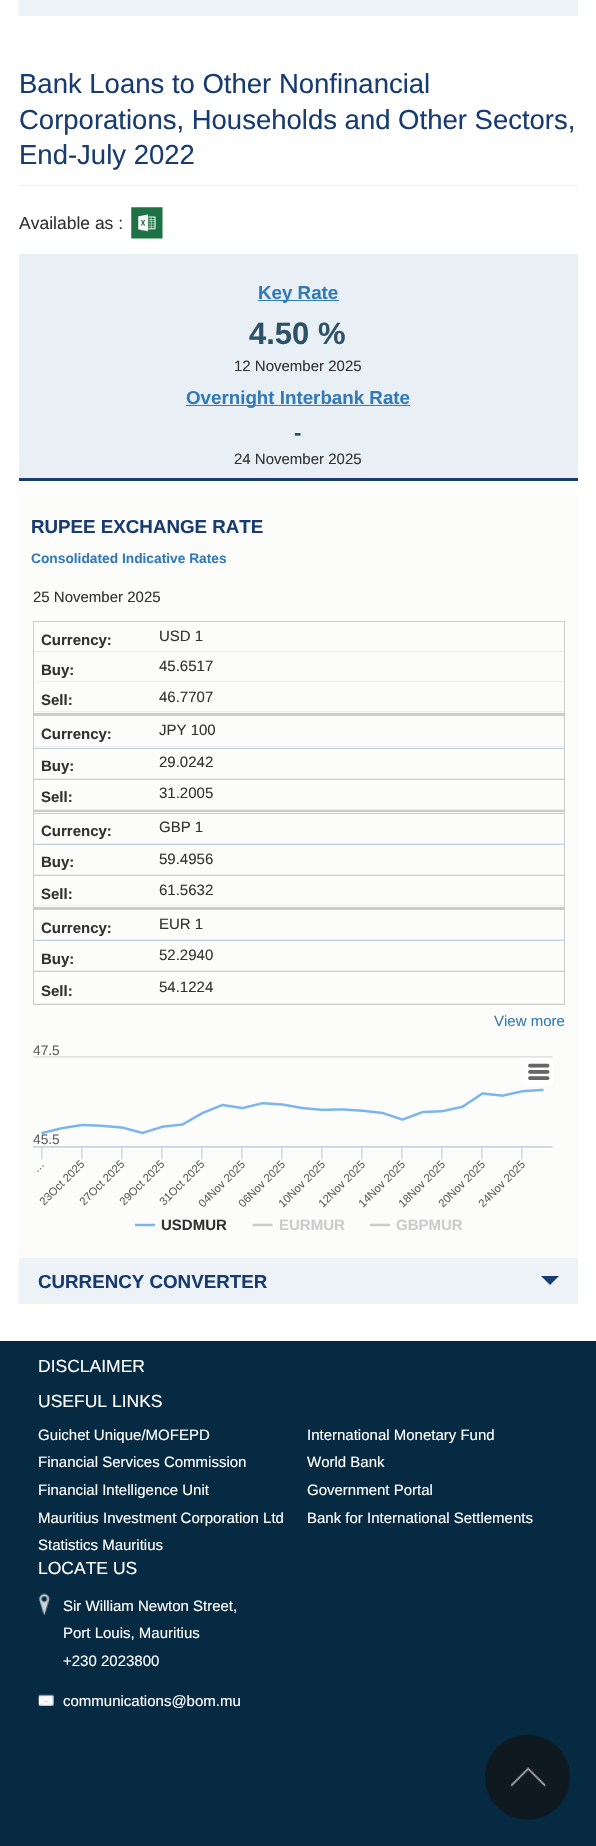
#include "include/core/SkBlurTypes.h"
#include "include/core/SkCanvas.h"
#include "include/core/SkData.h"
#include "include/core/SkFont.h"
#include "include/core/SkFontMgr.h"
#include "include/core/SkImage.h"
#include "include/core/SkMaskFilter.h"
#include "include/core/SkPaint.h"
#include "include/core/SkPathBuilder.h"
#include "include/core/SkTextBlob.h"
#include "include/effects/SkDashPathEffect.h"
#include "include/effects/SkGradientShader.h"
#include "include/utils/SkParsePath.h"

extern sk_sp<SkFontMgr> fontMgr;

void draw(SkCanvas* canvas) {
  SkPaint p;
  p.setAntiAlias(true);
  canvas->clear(SK_ColorWHITE);
  p.setColor(SkColorSetRGB(237, 242, 246));
  canvas->drawRect(SkRect::MakeLTRB(19, 0, 578, 16), p);
  p.setColor(SkColorSetRGB(238, 238, 238));
  canvas->drawRect(SkRect::MakeLTRB(19, 185, 578, 186), p);
  canvas->drawImageRect(SkImages::DeferredFromEncodedData(SkData::MakeFromFileName("images/1.png")), SkRect::MakeLTRB(131, 207, 163, 239), SkSamplingOptions());
  p.setColor(SkColorSetRGB(232, 239, 245));
  canvas->drawRect(SkRect::MakeLTRB(19, 254, 578, 478), p);
  p.setColor(SkColorSetRGB(51, 122, 183));
  canvas->drawRect(SkRect::MakeLTRB(258, 300, 339, 301), p);
  p.setColor(SkColorSetRGB(24, 59, 113));
  canvas->drawRect(SkRect::MakeLTRB(19, 478, 578, 481), p);
  p.setColor(SkColorSetRGB(51, 122, 183));
  canvas->drawRect(SkRect::MakeLTRB(186, 405, 410, 406), p);
  p.setColor(SkColorSetRGB(252, 252, 250));
  canvas->drawRect(SkRect::MakeLTRB(19, 496, 578, 1258), p);
  p.setStyle(SkPaint::kStroke_Style);
  p.setStrokeWidth(1);
  p.setColor(SkColorSetRGB(204, 204, 204));
  canvas->drawRect(SkRect::MakeLTRB(33.5f, 621.5f, 564.5f, 713.5f), p);
  p.setStyle(SkPaint::kFill_Style);
  p.setColor(SkColorSetRGB(238, 238, 238));
  canvas->drawRect(SkRect::MakeLTRB(34, 651, 564, 652), p);
  canvas->drawRect(SkRect::MakeLTRB(34, 681, 564, 682), p);
  canvas->drawRect(SkRect::MakeLTRB(34, 711, 564, 712), p);
  p.setStyle(SkPaint::kStroke_Style);
  p.setColor(SkColorSetRGB(204, 204, 204));
  canvas->drawRect(SkRect::MakeLTRB(33.5f, 714.5f, 564.5f, 810.5f), p);
  p.setStyle(SkPaint::kFill_Style);
  p.setColor(SkColorSetRGB(194, 208, 219));
  canvas->drawRect(SkRect::MakeLTRB(34, 715, 564, 716), p);
  p.setColor(SkColorSetRGB(238, 238, 238));
  canvas->drawRect(SkRect::MakeLTRB(34, 746, 564, 747), p);
  p.setColor(SkColorSetRGB(194, 208, 219));
  canvas->drawRect(SkRect::MakeLTRB(34, 748, 564, 749), p);
  p.setColor(SkColorSetRGB(238, 238, 238));
  canvas->drawRect(SkRect::MakeLTRB(34, 778, 564, 779), p);
  p.setColor(SkColorSetRGB(194, 208, 219));
  canvas->drawRect(SkRect::MakeLTRB(34, 779, 564, 780), p);
  p.setColor(SkColorSetRGB(238, 238, 238));
  canvas->drawRect(SkRect::MakeLTRB(34, 809, 564, 810), p);
  p.setStyle(SkPaint::kStroke_Style);
  p.setColor(SkColorSetRGB(204, 204, 204));
  canvas->drawRect(SkRect::MakeLTRB(33.5f, 811.5f, 564.5f, 907.5f), p);
  p.setStyle(SkPaint::kFill_Style);
  p.setColor(SkColorSetRGB(194, 208, 219));
  canvas->drawRect(SkRect::MakeLTRB(34, 813, 564, 814), p);
  p.setColor(SkColorSetRGB(238, 238, 238));
  canvas->drawRect(SkRect::MakeLTRB(34, 843, 564, 844), p);
  p.setColor(SkColorSetRGB(194, 208, 219));
  canvas->drawRect(SkRect::MakeLTRB(34, 844, 564, 845), p);
  p.setColor(SkColorSetRGB(238, 238, 238));
  canvas->drawRect(SkRect::MakeLTRB(34, 874, 564, 875), p);
  p.setColor(SkColorSetRGB(194, 208, 219));
  canvas->drawRect(SkRect::MakeLTRB(34, 875, 564, 876), p);
  p.setColor(SkColorSetRGB(238, 238, 238));
  canvas->drawRect(SkRect::MakeLTRB(34, 905, 564, 906), p);
  p.setStyle(SkPaint::kStroke_Style);
  p.setColor(SkColorSetRGB(204, 204, 204));
  canvas->drawRect(SkRect::MakeLTRB(33.5f, 908.5f, 564.5f, 1004.5f), p);
  p.setStyle(SkPaint::kFill_Style);
  p.setColor(SkColorSetRGB(194, 208, 219));
  canvas->drawRect(SkRect::MakeLTRB(34, 909, 564, 910), p);
  p.setColor(SkColorSetRGB(238, 238, 238));
  canvas->drawRect(SkRect::MakeLTRB(34, 939, 564, 940), p);
  p.setColor(SkColorSetRGB(194, 208, 219));
  canvas->drawRect(SkRect::MakeLTRB(34, 940, 564, 941), p);
  p.setColor(SkColorSetRGB(238, 238, 238));
  canvas->drawRect(SkRect::MakeLTRB(34, 970, 564, 971), p);
  p.setColor(SkColorSetRGB(194, 208, 219));
  canvas->drawRect(SkRect::MakeLTRB(34, 971, 564, 972), p);
  p.setColor(SkColorSetRGB(238, 238, 238));
  canvas->drawRect(SkRect::MakeLTRB(34, 1003, 564, 1004), p);
  canvas->drawImageRect(SkImages::DeferredFromEncodedData(SkData::MakeFromFileName("images/2.png")), SkRect::MakeLTRB(33, 1056, 553, 1227), SkSamplingOptions());
  p.setColor(SkColorSetRGB(237, 242, 246));
  canvas->drawRect(SkRect::MakeLTRB(19, 1258, 578, 1304), p);
  p.setColor(SkColorSetRGB(24, 59, 113));
  canvas->drawPath(SkPathBuilder().moveTo(541, 1276).lineTo(559, 1276).lineTo(550, 1285).close().detach(), p);
  p.setColor(SkColorSetRGB(6, 42, 66));
  canvas->drawRect(SkRect::MakeLTRB(0, 1341, 596, 1846), p);
  canvas->drawImageRect(SkImages::DeferredFromEncodedData(SkData::MakeFromFileName("images/3.png")), SkRect::MakeLTRB(38, 1593, 51, 1615), SkSamplingOptions());
  canvas->drawImageRect(SkImages::DeferredFromEncodedData(SkData::MakeFromFileName("images/4.png")), SkRect::MakeLTRB(38, 1694, 54, 1706), SkSamplingOptions());
  canvas->drawImageRect(SkImages::DeferredFromEncodedData(SkData::MakeFromFileName("images/5.png")), SkRect::MakeLTRB(485, 1734, 570, 1820), SkSamplingOptions());
  SkFont font1(fontMgr->matchFamilyStyle("Liberation Sans", SkFontStyle::Normal()), 27.5f);
  font1.setSubpixel(true);
  p.setColor(SkColorSetRGB(24, 59, 113));
  canvas->drawString("Bank Loans to Other Nonfinancial", 19, 93, font1, p);
  canvas->drawString("Corporations, Households and Other Sectors,", 19, 129, font1, p);
  canvas->drawString("End-July 2022", 19, 164, font1, p);
  SkFont font2(fontMgr->matchFamilyStyle("Liberation Sans", SkFontStyle::Normal()), 17.5f);
  font2.setSubpixel(true);
  p.setColor(SkColorSetRGB(51, 51, 51));
  canvas->drawString("Available as :", 19, 229, font2, p);
  SkFont font3(fontMgr->matchFamilyStyle("Liberation Sans", SkFontStyle::Bold()), 18.75f);
  font3.setSubpixel(true);
  p.setColor(SkColorSetRGB(51, 122, 183));
  canvas->drawString("Key Rate", 258, 299, font3, p);
  SkFont font4(fontMgr->matchFamilyStyle("Liberation Sans", SkFontStyle::Bold()), 31);
  font4.setSubpixel(true);
  p.setColor(SkColorSetRGB(45, 82, 101));
  canvas->drawString("4.50 %", 249, 344, font4, p);
  SkFont font5(fontMgr->matchFamilyStyle("Liberation Sans", SkFontStyle::Normal()), 15);
  font5.setSubpixel(true);
  p.setColor(SkColorSetRGB(51, 51, 51));
  canvas->drawString("12 November 2025", 234, 371, font5, p);
  p.setColor(SkColorSetRGB(51, 122, 183));
  canvas->drawString("Overnight Interbank Rate", 186, 404, font3, p);
  SkFont font6(fontMgr->matchFamilyStyle("Liberation Sans", SkFontStyle::Bold()), 22);
  font6.setSubpixel(true);
  p.setColor(SkColorSetRGB(45, 82, 101));
  canvas->drawString("-", 294, 440, font6, p);
  p.setColor(SkColorSetRGB(51, 51, 51));
  canvas->drawString("24 November 2025", 234, 464, font5, p);
  p.setColor(SkColorSetRGB(24, 59, 113));
  canvas->drawString("RUPEE EXCHANGE RATE", 31, 533, font3, p);
  SkFont font7(fontMgr->matchFamilyStyle("Liberation Sans", SkFontStyle::Bold()), 13.75f);
  font7.setSubpixel(true);
  p.setColor(SkColorSetRGB(51, 122, 183));
  canvas->drawString("Consolidated Indicative Rates", 31, 563, font7, p);
  p.setColor(SkColorSetRGB(51, 51, 51));
  canvas->drawString("25 November 2025", 33, 602, font5, p);
  SkFont font8(fontMgr->matchFamilyStyle("Liberation Sans", SkFontStyle::Bold()), 15);
  font8.setSubpixel(true);
  canvas->drawString("Currency:", 41, 645, font8, p);
  canvas->drawString("USD 1", 159, 641, font5, p);
  canvas->drawString("Buy:", 41, 675, font8, p);
  canvas->drawString("45.6517", 159, 671, font5, p);
  canvas->drawString("Sell:", 41, 705, font8, p);
  canvas->drawString("46.7707", 159, 702, font5, p);
  canvas->drawString("Currency:", 41, 739, font8, p);
  canvas->drawString("JPY 100", 159, 735, font5, p);
  canvas->drawString("Buy:", 41, 771, font8, p);
  canvas->drawString("29.0242", 159, 767, font5, p);
  canvas->drawString("Sell:", 41, 802, font8, p);
  canvas->drawString("31.2005", 159, 798, font5, p);
  canvas->drawString("Currency:", 41, 836, font8, p);
  canvas->drawString("GBP 1", 159, 832, font5, p);
  canvas->drawString("Buy:", 41, 867, font8, p);
  canvas->drawString("59.4956", 159, 864, font5, p);
  canvas->drawString("Sell:", 41, 899, font8, p);
  canvas->drawString("61.5632", 159, 895, font5, p);
  canvas->drawString("Currency:", 41, 933, font8, p);
  canvas->drawString("EUR 1", 159, 929, font5, p);
  canvas->drawString("Buy:", 41, 964, font8, p);
  canvas->drawString("52.2940", 159, 960, font5, p);
  canvas->drawString("Sell:", 41, 996, font8, p);
  canvas->drawString("54.1224", 159, 992, font5, p);
  p.setColor(SkColorSetRGB(51, 122, 183));
  canvas->drawString("View more", 494, 1026, font5, p);
  SkFont font9(fontMgr->matchFamilyStyle("Liberation Sans", SkFontStyle::Normal()), 13.75f);
  font9.setSubpixel(true);
  p.setColor(SkColorSetRGB(96, 96, 96));
  canvas->drawString("47.5", 33, 1055, font9, p);
  canvas->drawString("45.5", 33, 1144, font9, p);
  SkFont font10(fontMgr->matchFamilyStyle("Liberation Sans", SkFontStyle::Normal()), 11.25f);
  font10.setSubpixel(true);
  canvas->save();
  canvas->rotate(-45, 37, 1173);
  canvas->drawString("…", 37, 1173, font10, p);
  canvas->restore();
  canvas->save();
  canvas->rotate(-45, 44, 1206);
  canvas->drawString("23Oct 2025", 44, 1206, font10, p);
  canvas->restore();
  canvas->save();
  canvas->rotate(-45, 84, 1206);
  canvas->drawString("27Oct 2025", 84, 1206, font10, p);
  canvas->restore();
  canvas->save();
  canvas->rotate(-45, 124, 1206);
  canvas->drawString("29Oct 2025", 124, 1206, font10, p);
  canvas->restore();
  canvas->save();
  canvas->rotate(-45, 164, 1206);
  canvas->drawString("31Oct 2025", 164, 1206, font10, p);
  canvas->restore();
  canvas->save();
  canvas->rotate(-45, 203, 1208);
  canvas->drawString("04Nov 2025", 203, 1208, font10, p);
  canvas->restore();
  canvas->save();
  canvas->rotate(-45, 243, 1208);
  canvas->drawString("06Nov 2025", 243, 1208, font10, p);
  canvas->restore();
  canvas->save();
  canvas->rotate(-45, 283, 1208);
  canvas->drawString("10Nov 2025", 283, 1208, font10, p);
  canvas->restore();
  canvas->save();
  canvas->rotate(-45, 323, 1208);
  canvas->drawString("12Nov 2025", 323, 1208, font10, p);
  canvas->restore();
  canvas->save();
  canvas->rotate(-45, 363, 1208);
  canvas->drawString("14Nov 2025", 363, 1208, font10, p);
  canvas->restore();
  canvas->save();
  canvas->rotate(-45, 403, 1208);
  canvas->drawString("18Nov 2025", 403, 1208, font10, p);
  canvas->restore();
  canvas->save();
  canvas->rotate(-45, 443, 1208);
  canvas->drawString("20Nov 2025", 443, 1208, font10, p);
  canvas->restore();
  canvas->save();
  canvas->rotate(-45, 483, 1208);
  canvas->drawString("24Nov 2025", 483, 1208, font10, p);
  canvas->restore();
  p.setColor(SkColorSetRGB(51, 51, 51));
  canvas->drawString("USDMUR", 161, 1230, font8, p);
  p.setColor(SkColorSetRGB(204, 204, 204));
  canvas->drawString("EURMUR", 279, 1230, font8, p);
  canvas->drawString("GBPMUR", 396, 1230, font8, p);
  p.setColor(SkColorSetRGB(24, 59, 113));
  canvas->drawString("CURRENCY CONVERTER", 38, 1288, font3, p);
  p.setColor(SK_ColorWHITE);
  canvas->drawString("DISCLAIMER", 38, 1372, font2, p);
  canvas->drawString("USEFUL LINKS", 38, 1407, font2, p);
  canvas->drawString("Guichet Unique/MOFEPD", 38, 1440, font5, p);
  canvas->drawString("International Monetary Fund", 307, 1440, font5, p);
  canvas->drawString("Financial Services Commission", 38, 1467, font5, p);
  canvas->drawString("World Bank", 307, 1467, font5, p);
  canvas->drawString("Financial Intelligence Unit", 38, 1495, font5, p);
  canvas->drawString("Government Portal", 307, 1495, font5, p);
  canvas->drawString("Mauritius Investment Corporation Ltd", 38, 1523, font5, p);
  canvas->drawString("Bank for International Settlements", 307, 1523, font5, p);
  canvas->drawString("Statistics Mauritius", 38, 1550, font5, p);
  canvas->drawString("LOCATE US", 38, 1574, font2, p);
  canvas->drawString("Sir William Newton Street,", 63, 1611, font5, p);
  canvas->drawString("Port Louis, Mauritius", 63, 1638, font5, p);
  canvas->drawString("+230 2023800", 63, 1666, font5, p);
  canvas->drawString("communications@bom.mu", 63, 1706, font5, p);
}
